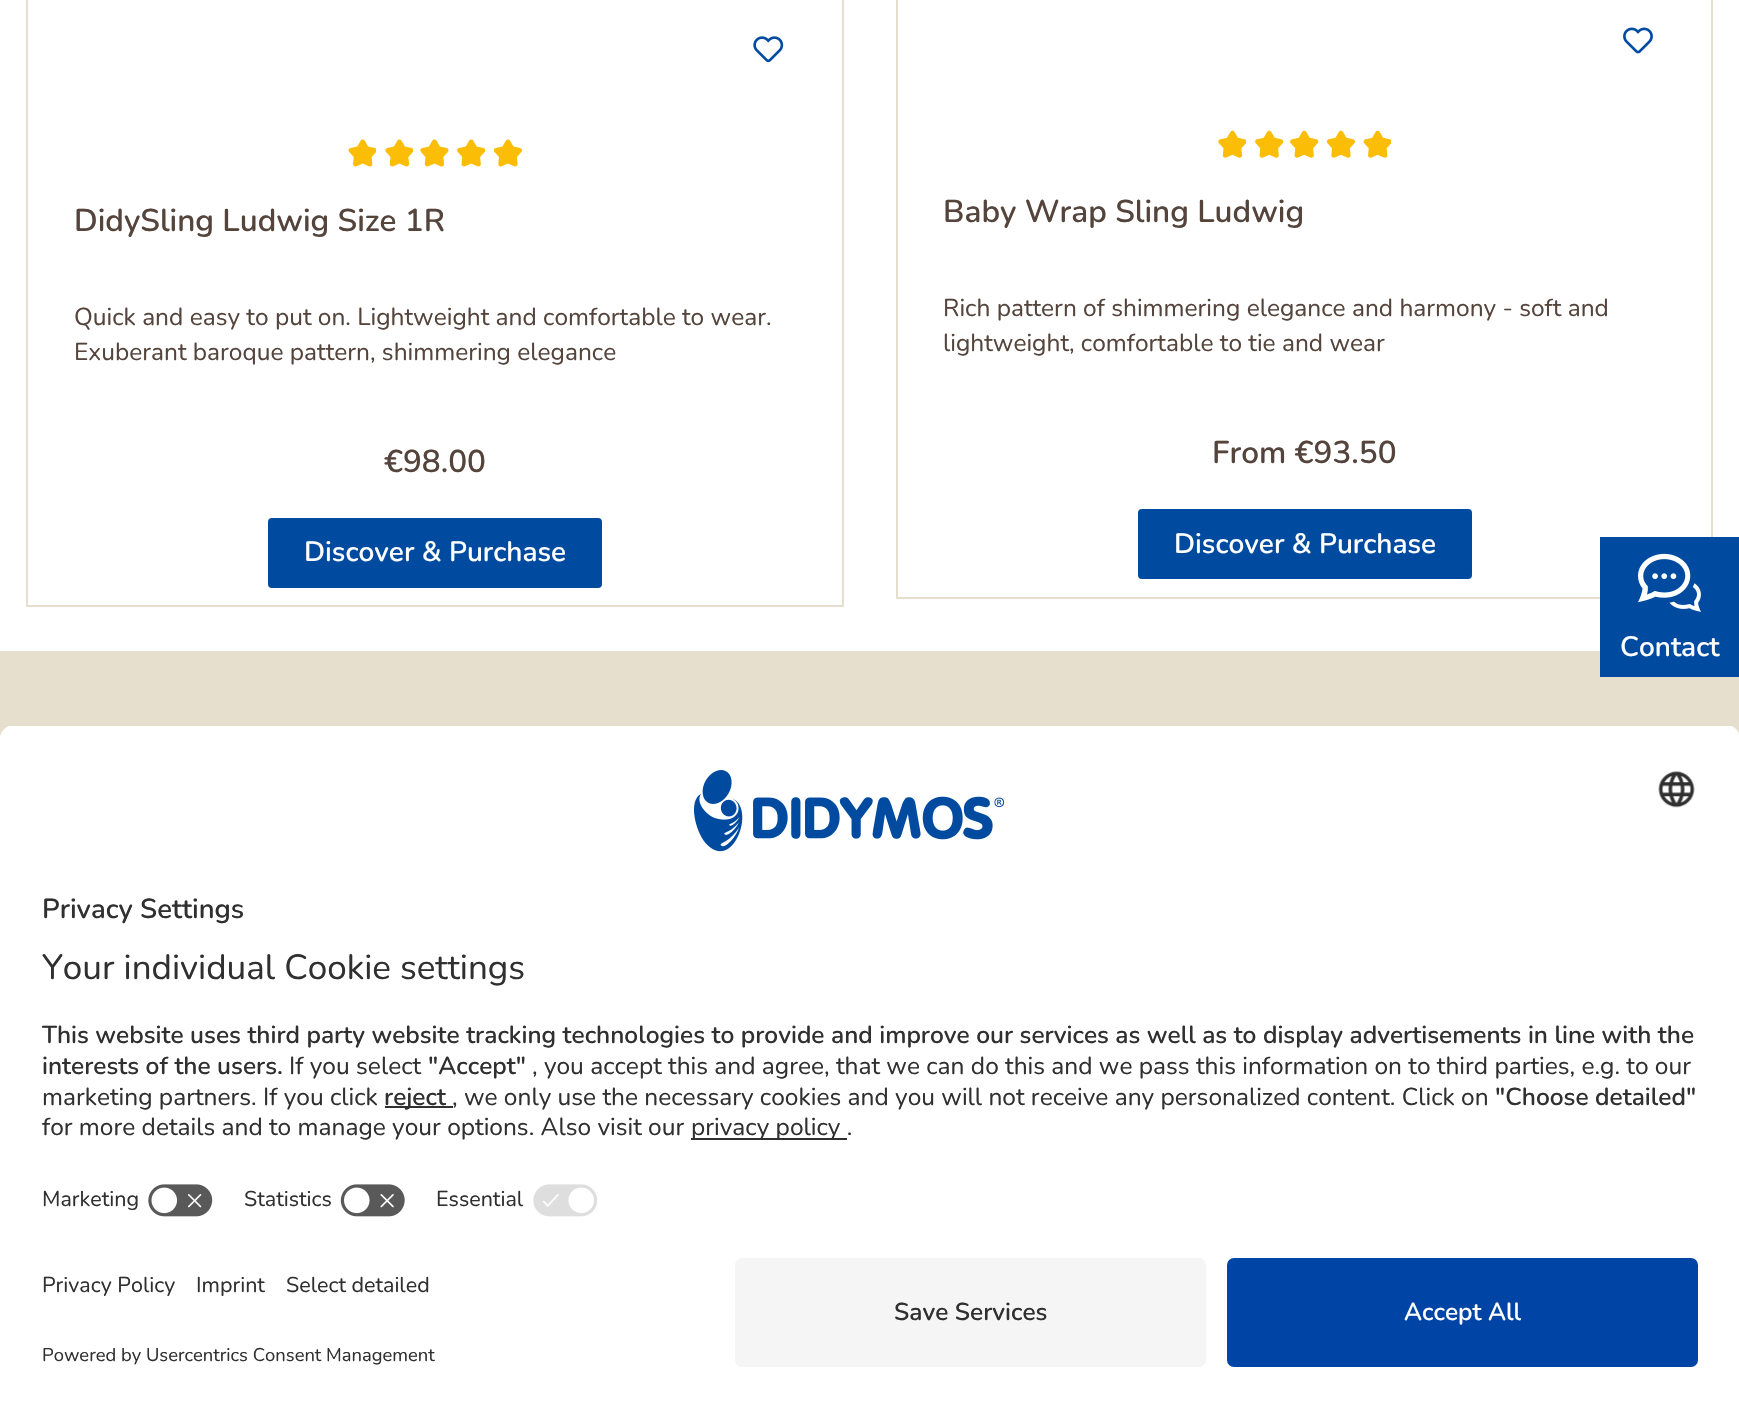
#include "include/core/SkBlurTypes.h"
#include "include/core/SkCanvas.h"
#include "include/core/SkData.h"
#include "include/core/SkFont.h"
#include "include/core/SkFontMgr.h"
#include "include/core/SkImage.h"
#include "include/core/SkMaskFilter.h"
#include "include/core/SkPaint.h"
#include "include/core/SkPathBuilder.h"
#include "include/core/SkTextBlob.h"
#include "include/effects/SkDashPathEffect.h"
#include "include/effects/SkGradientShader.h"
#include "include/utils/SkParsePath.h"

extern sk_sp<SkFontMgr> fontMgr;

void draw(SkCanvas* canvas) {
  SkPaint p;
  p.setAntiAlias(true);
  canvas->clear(SK_ColorWHITE);
  p.setStyle(SkPaint::kStroke_Style);
  p.setStrokeWidth(2);
  p.setColor(SkColorSetRGB(231, 223, 206));
  canvas->drawRect(SkRect::MakeLTRB(27, -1, 843, 606), p);
  canvas->drawImageRect(SkImages::DeferredFromEncodedData(SkData::MakeFromFileName("images/1.png")), SkRect::MakeLTRB(753, 36, 784, 63), SkSamplingOptions());
  canvas->drawImageRect(SkImages::DeferredFromEncodedData(SkData::MakeFromFileName("images/2.png")), SkRect::MakeLTRB(348, 139, 376, 167), SkSamplingOptions());
  canvas->drawImageRect(SkImages::DeferredFromEncodedData(SkData::MakeFromFileName("images/3.png")), SkRect::MakeLTRB(385, 139, 413, 167), SkSamplingOptions());
  canvas->drawImageRect(SkImages::DeferredFromEncodedData(SkData::MakeFromFileName("images/4.png")), SkRect::MakeLTRB(420, 139, 449, 167), SkSamplingOptions());
  canvas->drawImageRect(SkImages::DeferredFromEncodedData(SkData::MakeFromFileName("images/5.png")), SkRect::MakeLTRB(457, 139, 485, 167), SkSamplingOptions());
  canvas->drawImageRect(SkImages::DeferredFromEncodedData(SkData::MakeFromFileName("images/6.png")), SkRect::MakeLTRB(494, 139, 522, 167), SkSamplingOptions());
  p.setStyle(SkPaint::kFill_Style);
  p.setColor(SkColorSetRGB(0, 75, 160));
  canvas->drawRoundRect(SkRect::MakeLTRB(269, 519, 601, 587), 3, 3, p);
  p.setStyle(SkPaint::kStroke_Style);
  canvas->drawRoundRect(SkRect::MakeLTRB(269, 519, 601, 587), 3, 3, p);
  p.setColor(SkColorSetRGB(231, 223, 206));
  canvas->drawRect(SkRect::MakeLTRB(897, -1, 1712, 598), p);
  canvas->drawImageRect(SkImages::DeferredFromEncodedData(SkData::MakeFromFileName("images/7.png")), SkRect::MakeLTRB(1623, 27, 1653, 54), SkSamplingOptions());
  canvas->drawImageRect(SkImages::DeferredFromEncodedData(SkData::MakeFromFileName("images/8.png")), SkRect::MakeLTRB(1218, 130, 1246, 158), SkSamplingOptions());
  canvas->drawImageRect(SkImages::DeferredFromEncodedData(SkData::MakeFromFileName("images/9.png")), SkRect::MakeLTRB(1255, 130, 1283, 158), SkSamplingOptions());
  canvas->drawImageRect(SkImages::DeferredFromEncodedData(SkData::MakeFromFileName("images/10.png")), SkRect::MakeLTRB(1290, 130, 1319, 158), SkSamplingOptions());
  canvas->drawImageRect(SkImages::DeferredFromEncodedData(SkData::MakeFromFileName("images/11.png")), SkRect::MakeLTRB(1327, 130, 1355, 158), SkSamplingOptions());
  canvas->drawImageRect(SkImages::DeferredFromEncodedData(SkData::MakeFromFileName("images/12.png")), SkRect::MakeLTRB(1363, 130, 1391, 158), SkSamplingOptions());
  p.setStyle(SkPaint::kFill_Style);
  p.setColor(SkColorSetRGB(0, 75, 160));
  canvas->drawRoundRect(SkRect::MakeLTRB(1139, 510, 1471, 578), 3, 3, p);
  p.setStyle(SkPaint::kStroke_Style);
  canvas->drawRoundRect(SkRect::MakeLTRB(1139, 510, 1471, 578), 3, 3, p);
  p.setStyle(SkPaint::kFill_Style);
  p.setColor(SkColorSetRGB(231, 223, 206));
  canvas->drawRect(SkRect::MakeLTRB(0, 651, 1739, 739), p);
  p.setColor(SkColorSetRGB(0, 75, 160));
  canvas->drawRect(SkRect::MakeLTRB(1600, 537, 1739, 677), p);
  canvas->drawImageRect(SkImages::DeferredFromEncodedData(SkData::MakeFromFileName("images/13.png")), SkRect::MakeLTRB(1638, 553, 1701, 612), SkSamplingOptions());
  canvas->save();
  canvas->clipPath(SkPathBuilder().moveTo(14, 725).lineTo(1726, 725).cubicTo(1733.5f, 725, 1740, 731.5f, 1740, 739).lineTo(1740, 1244).lineTo(0, 1244).lineTo(0, 739).cubicTo(0, 731.5f, 6.5f, 725, 14, 725).close().detach(), true);
  p.setColor(SK_ColorWHITE);
  canvas->drawRect(SkRect::MakeLTRB(0, 726, 1739, 1244), p);
  canvas->drawRect(SkRect::MakeLTRB(0, 726, 1739, 1174), p);
  canvas->restore();
  canvas->drawImageRect(SkImages::DeferredFromEncodedData(SkData::MakeFromFileName("images/14.png")), SkRect::MakeLTRB(694, 770, 1005, 852), SkSamplingOptions());
  canvas->drawImageRect(SkImages::DeferredFromEncodedData(SkData::MakeFromFileName("images/15.png")), SkRect::MakeLTRB(1658, 771, 1695, 808), SkSamplingOptions());
  p.setColor(SkColorSetRGB(48, 48, 48));
  canvas->drawRect(SkRect::MakeLTRB(385, 1106, 453, 1108), p);
  canvas->drawRect(SkRect::MakeLTRB(691, 1138, 847, 1140), p);
  canvas->drawImageRect(SkImages::DeferredFromEncodedData(SkData::MakeFromFileName("images/16.png")), SkRect::MakeLTRB(148, 1184, 213, 1217), SkSamplingOptions());
  canvas->drawImageRect(SkImages::DeferredFromEncodedData(SkData::MakeFromFileName("images/17.png")), SkRect::MakeLTRB(340, 1184, 405, 1217), SkSamplingOptions());
  canvas->drawImageRect(SkImages::DeferredFromEncodedData(SkData::MakeFromFileName("images/18.png")), SkRect::MakeLTRB(533, 1184, 598, 1217), SkSamplingOptions());
  p.setColor(SkColorSetRGB(245, 245, 245));
  canvas->drawRoundRect(SkRect::MakeLTRB(735, 1258, 1206, 1367), 7, 7, p);
  p.setColor(SkColorSetRGB(0, 69, 165));
  canvas->drawRoundRect(SkRect::MakeLTRB(1227, 1258, 1698, 1367), 7, 7, p);
  SkFont font1(fontMgr->matchFamilyStyle("Nunito", SkFontStyle(600, SkFontStyle::kNormal_Width, SkFontStyle::kUpright_Slant)), 31.5f);
  font1.setSubpixel(true);
  p.setColor(SkColorSetRGB(84, 68, 60));
  canvas->drawString("DidySling Ludwig Size 1R", 74, 231, font1, p);
  SkFont font2(fontMgr->matchFamilyStyle("Nunito", SkFontStyle::Normal()), 24.5f);
  font2.setSubpixel(true);
  canvas->drawString("Quick and easy to put on. Lightweight and comfortable to wear.", 74, 325, font2, p);
  canvas->drawString("Exuberant baroque pattern, shimmering elegance", 74, 360, font2, p);
  canvas->drawString("€98.00", 384, 472, font1, p);
  SkFont font3(fontMgr->matchFamilyStyle("Nunito", SkFontStyle(600, SkFontStyle::kNormal_Width, SkFontStyle::kUpright_Slant)), 28);
  font3.setSubpixel(true);
  p.setColor(SK_ColorWHITE);
  canvas->drawString("Discover & Purchase", 304, 561, font3, p);
  p.setColor(SkColorSetRGB(84, 68, 60));
  canvas->drawString("Baby Wrap Sling Ludwig", 943, 222, font1, p);
  canvas->drawString("Rich pattern of shimmering elegance and harmony - soft and", 943, 316, font2, p);
  canvas->drawString("lightweight, comfortable to tie and wear", 943, 351, font2, p);
  canvas->drawString("From €93.50", 1212, 463, font1, p);
  p.setColor(SK_ColorWHITE);
  canvas->drawString("Discover & Purchase", 1174, 553, font3, p);
  canvas->drawString("Contact", 1620, 656, font3, p);
  SkFont font4(fontMgr->matchFamilyStyle("Nunito", SkFontStyle(600, SkFontStyle::kNormal_Width, SkFontStyle::kUpright_Slant)), 27.5f);
  font4.setSubpixel(true);
  p.setColor(SkColorSetRGB(48, 48, 48));
  canvas->drawString("Privacy Settings", 42, 918, font4, p);
  SkFont font5(fontMgr->matchFamilyStyle("Nunito", SkFontStyle::Normal()), 35);
  font5.setSubpixel(true);
  canvas->drawString("Your individual Cookie settings", 42, 979, font5, p);
  SkFont font6(fontMgr->matchFamilyStyle("Nunito", SkFontStyle(600, SkFontStyle::kNormal_Width, SkFontStyle::kUpright_Slant)), 24.5f);
  font6.setSubpixel(true);
  canvas->drawString("This website uses third party website tracking technologies to provide and improve our services as well as to display advertisements in line with the", 42, 1043, font6, p);
  canvas->drawString("interests of the users.", 42, 1074, font6, p);
  canvas->drawString("If you select", 289, 1074, font2, p);
  canvas->drawString("\"Accept\"", 428, 1074, font6, p);
  canvas->drawString(", you accept this and agree, that we can do this and we pass this information on to third parties, e.g. to our", 532, 1074, font2, p);
  canvas->drawString("marketing partners. If you click", 42, 1105, font2, p);
  canvas->drawString("reject", 384, 1105, font6, p);
  canvas->drawString(", we only use the necessary cookies and you will not receive any personalized content. Click on", 452, 1105, font2, p);
  canvas->drawString("\"Choose detailed\"", 1495, 1105, font6, p);
  canvas->drawString("for more details and to manage your options. Also visit our", 42, 1135, font2, p);
  canvas->drawString("privacy policy .", 691, 1135, font2, p);
  SkFont font7(fontMgr->matchFamilyStyle("Nunito", SkFontStyle::Normal()), 21.5f);
  font7.setSubpixel(true);
  canvas->drawString("Marketing", 42, 1206, font7, p);
  canvas->drawString("Statistics", 244, 1206, font7, p);
  canvas->drawString("Essential", 436, 1206, font7, p);
  canvas->drawString("Privacy Policy", 42, 1292, font7, p);
  canvas->drawString("Imprint", 196, 1292, font7, p);
  canvas->drawString("Select detailed", 286, 1292, font7, p);
  SkFont font8(fontMgr->matchFamilyStyle("Nunito", SkFontStyle::Normal()), 18.4f);
  font8.setSubpixel(true);
  canvas->drawString("Powered by Usercentrics Consent Management", 42, 1361, font8, p);
  canvas->drawString("Save Services", 894, 1320, font6, p);
  p.setColor(SK_ColorWHITE);
  canvas->drawString("Accept All", 1404, 1320, font6, p);
}
